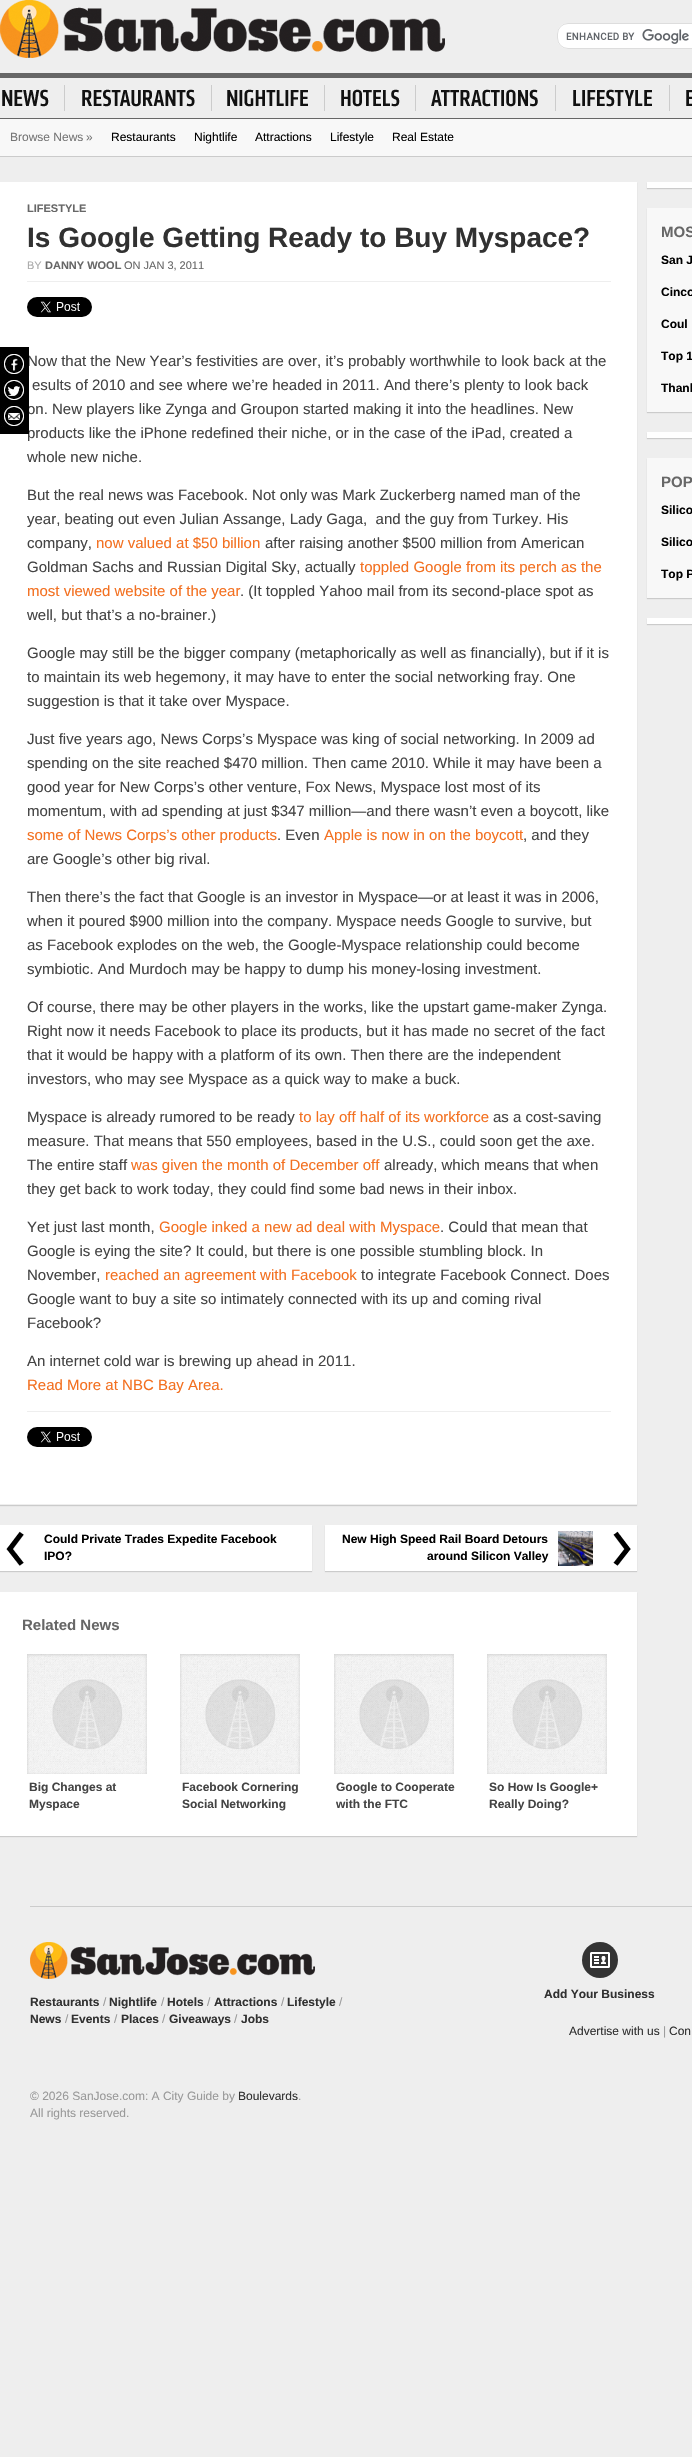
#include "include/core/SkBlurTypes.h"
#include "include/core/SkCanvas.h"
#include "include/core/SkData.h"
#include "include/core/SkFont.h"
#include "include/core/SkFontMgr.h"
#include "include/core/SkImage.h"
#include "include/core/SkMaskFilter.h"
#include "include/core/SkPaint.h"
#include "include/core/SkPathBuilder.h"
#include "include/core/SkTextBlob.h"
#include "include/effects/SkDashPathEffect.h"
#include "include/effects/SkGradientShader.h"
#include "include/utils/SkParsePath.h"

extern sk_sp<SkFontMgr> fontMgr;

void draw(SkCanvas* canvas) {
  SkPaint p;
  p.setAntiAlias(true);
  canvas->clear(SkColorSetRGB(238, 238, 238));
  canvas->drawImageRect(SkImages::DeferredFromEncodedData(SkData::MakeFromFileName("images/1.png")), SkRect::MakeLTRB(0, 0, 445, 58), SkSamplingOptions());
  p.setColor(SK_ColorWHITE);
  canvas->drawRoundRect(SkRect::MakeLTRB(557, 23, 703, 49), 11, 11, p);
  canvas->drawImageRect(SkImages::DeferredFromEncodedData(SkData::MakeFromFileName("images/2.png")), SkRect::MakeLTRB(566, 29, 689, 44), SkSamplingOptions());
  p.setStyle(SkPaint::kStroke_Style);
  p.setStrokeWidth(1);
  p.setColor(SkColorSetRGB(221, 221, 221));
  canvas->drawRoundRect(SkRect::MakeLTRB(557.5f, 23.5f, 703.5f, 48.5f), 10.5f, 10.5f, p);
  p.setStyle(SkPaint::kFill_Style);
  p.setColor(SkColorSetRGB(102, 102, 102));
  canvas->drawRect(SkRect::MakeLTRB(0, 73, 692, 78), p);
  canvas->drawRect(SkRect::MakeLTRB(0, 118, 692, 119), p);
  canvas->drawImageRect(SkImages::DeferredFromEncodedData(SkData::MakeFromFileName("images/3.png")), SkRect::MakeLTRB(2, 85, 65, 111), SkSamplingOptions());
  canvas->drawImageRect(SkImages::DeferredFromEncodedData(SkData::MakeFromFileName("images/4.png")), SkRect::MakeLTRB(82, 85, 212, 111), SkSamplingOptions());
  canvas->drawImageRect(SkImages::DeferredFromEncodedData(SkData::MakeFromFileName("images/5.png")), SkRect::MakeLTRB(227, 85, 325, 111), SkSamplingOptions());
  canvas->drawImageRect(SkImages::DeferredFromEncodedData(SkData::MakeFromFileName("images/6.png")), SkRect::MakeLTRB(341, 85, 416, 111), SkSamplingOptions());
  canvas->drawImageRect(SkImages::DeferredFromEncodedData(SkData::MakeFromFileName("images/7.png")), SkRect::MakeLTRB(431, 85, 556, 111), SkSamplingOptions());
  canvas->drawImageRect(SkImages::DeferredFromEncodedData(SkData::MakeFromFileName("images/8.png")), SkRect::MakeLTRB(573, 85, 670, 111), SkSamplingOptions());
  canvas->drawImageRect(SkImages::DeferredFromEncodedData(SkData::MakeFromFileName("images/9.png")), SkRect::MakeLTRB(686, 90, 692, 106), SkSamplingOptions());
  p.setColor(SkColorSetRGB(248, 248, 248));
  canvas->drawRect(SkRect::MakeLTRB(0, 119, 692, 156), p);
  p.setColor(SkColorSetRGB(203, 203, 203));
  canvas->drawRect(SkRect::MakeLTRB(0, 156, 692, 157), p);
  p.setMaskFilter(SkMaskFilter::MakeBlur(kNormal_SkBlurStyle, 0.5f));
  canvas->drawRect(SkRect::MakeLTRB(0, 183, 637, 1506), p);
  p.setMaskFilter(nullptr);
  p.setColor(SK_ColorWHITE);
  canvas->drawRect(SkRect::MakeLTRB(0, 182, 637, 1504), p);
  p.setColor(SkColorSetRGB(238, 238, 238));
  canvas->drawRect(SkRect::MakeLTRB(0, 1504, 637, 1505), p);
  canvas->drawRect(SkRect::MakeLTRB(27, 281, 611, 282), p);
  canvas->drawImageRect(SkImages::DeferredFromEncodedData(SkData::MakeFromFileName("images/13.png")), SkRect::MakeLTRB(27, 297, 92, 317), SkSamplingOptions());
  canvas->drawRect(SkRect::MakeLTRB(27, 1411, 611, 1412), p);
  canvas->drawImageRect(SkImages::DeferredFromEncodedData(SkData::MakeFromFileName("images/13.png")), SkRect::MakeLTRB(27, 1427, 92, 1447), SkSamplingOptions());
  p.setColor(SkColorSetRGB(203, 203, 203));
  p.setMaskFilter(SkMaskFilter::MakeBlur(kNormal_SkBlurStyle, 0.5f));
  canvas->drawRect(SkRect::MakeLTRB(0, 1526, 312, 1572), p);
  p.setMaskFilter(nullptr);
  p.setColor(SK_ColorWHITE);
  canvas->drawRect(SkRect::MakeLTRB(0, 1525, 312, 1571), p);
  canvas->drawImageRect(SkImages::DeferredFromEncodedData(SkData::MakeFromFileName("images/14.png")), SkRect::MakeLTRB(6, 1531, 24, 1566), SkSamplingOptions());
  p.setColor(SkColorSetRGB(203, 203, 203));
  p.setMaskFilter(SkMaskFilter::MakeBlur(kNormal_SkBlurStyle, 0.5f));
  canvas->drawRect(SkRect::MakeLTRB(325, 1526, 637, 1572), p);
  p.setMaskFilter(nullptr);
  p.setColor(SK_ColorWHITE);
  canvas->drawRect(SkRect::MakeLTRB(325, 1525, 637, 1571), p);
  canvas->drawImageRect(SkImages::DeferredFromEncodedData(SkData::MakeFromFileName("images/15.png")), SkRect::MakeLTRB(558, 1531, 593, 1566), SkSamplingOptions());
  canvas->drawImageRect(SkImages::DeferredFromEncodedData(SkData::MakeFromFileName("images/16.png")), SkRect::MakeLTRB(613, 1531, 631, 1566), SkSamplingOptions());
  p.setColor(SkColorSetRGB(203, 203, 203));
  p.setMaskFilter(SkMaskFilter::MakeBlur(kNormal_SkBlurStyle, 0.5f));
  canvas->drawRect(SkRect::MakeLTRB(0, 1593, 637, 1837), p);
  p.setMaskFilter(nullptr);
  p.setColor(SK_ColorWHITE);
  canvas->drawRect(SkRect::MakeLTRB(0, 1592, 637, 1836), p);
  canvas->drawImageRect(SkImages::DeferredFromEncodedData(SkData::MakeFromFileName("images/17.png")), SkRect::MakeLTRB(27, 1654, 147, 1774), SkSamplingOptions());
  canvas->drawImageRect(SkImages::DeferredFromEncodedData(SkData::MakeFromFileName("images/17.png")), SkRect::MakeLTRB(180, 1654, 300, 1774), SkSamplingOptions());
  canvas->drawImageRect(SkImages::DeferredFromEncodedData(SkData::MakeFromFileName("images/18.png")), SkRect::MakeLTRB(334, 1654, 454, 1774), SkSamplingOptions());
  canvas->drawImageRect(SkImages::DeferredFromEncodedData(SkData::MakeFromFileName("images/19.png")), SkRect::MakeLTRB(487, 1654, 607, 1774), SkSamplingOptions());
  p.setColor(SkColorSetRGB(203, 203, 203));
  p.setMaskFilter(SkMaskFilter::MakeBlur(kNormal_SkBlurStyle, 0.5f));
  canvas->drawRect(SkRect::MakeLTRB(647, 183, 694, 189), p);
  p.setMaskFilter(nullptr);
  p.setColor(SK_ColorWHITE);
  canvas->drawRect(SkRect::MakeLTRB(647, 182, 692, 188), p);
  p.setColor(SkColorSetRGB(203, 203, 203));
  p.setMaskFilter(SkMaskFilter::MakeBlur(kNormal_SkBlurStyle, 0.5f));
  canvas->drawRect(SkRect::MakeLTRB(647, 209, 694, 413), p);
  p.setMaskFilter(nullptr);
  p.setColor(SkColorSetRGB(248, 248, 248));
  canvas->drawRect(SkRect::MakeLTRB(647, 208, 692, 412), p);
  p.setColor(SkColorSetRGB(203, 203, 203));
  p.setMaskFilter(SkMaskFilter::MakeBlur(kNormal_SkBlurStyle, 0.5f));
  canvas->drawRect(SkRect::MakeLTRB(647, 433, 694, 439), p);
  p.setMaskFilter(nullptr);
  p.setColor(SK_ColorWHITE);
  canvas->drawRect(SkRect::MakeLTRB(647, 432, 692, 438), p);
  p.setColor(SkColorSetRGB(203, 203, 203));
  p.setMaskFilter(SkMaskFilter::MakeBlur(kNormal_SkBlurStyle, 0.5f));
  canvas->drawRect(SkRect::MakeLTRB(647, 459, 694, 599), p);
  p.setMaskFilter(nullptr);
  p.setColor(SkColorSetRGB(248, 248, 248));
  canvas->drawRect(SkRect::MakeLTRB(647, 458, 692, 598), p);
  p.setColor(SkColorSetRGB(203, 203, 203));
  p.setMaskFilter(SkMaskFilter::MakeBlur(kNormal_SkBlurStyle, 0.5f));
  canvas->drawRect(SkRect::MakeLTRB(647, 619, 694, 625), p);
  p.setMaskFilter(nullptr);
  p.setColor(SK_ColorWHITE);
  canvas->drawRect(SkRect::MakeLTRB(647, 618, 692, 624), p);
  p.setColor(SkColorSetRGB(204, 204, 204));
  canvas->drawRect(SkRect::MakeLTRB(30, 1906, 692, 1907), p);
  canvas->drawImageRect(SkImages::DeferredFromEncodedData(SkData::MakeFromFileName("images/20.png")), SkRect::MakeLTRB(30, 1942, 315, 1979), SkSamplingOptions());
  p.setColor(SkColorSetRGB(51, 51, 51));
  canvas->drawCircle(600, 1960, 18, p);
  canvas->drawImageRect(SkImages::DeferredFromEncodedData(SkData::MakeFromFileName("images/21.png")), SkRect::MakeLTRB(590, 1952, 610, 1968), SkSamplingOptions());
  SkFont font1(fontMgr->matchFamilyStyle("Liberation Sans", SkFontStyle::Normal()), 12);
  font1.setSubpixel(true);
  p.setColor(SkColorSetRGB(119, 119, 119));
  canvas->drawString("Browse News", 10, 141, font1, p);
  canvas->drawString("»", 86, 141, font1, p);
  p.setColor(SK_ColorBLACK);
  canvas->drawString("Restaurants", 111, 141, font1, p);
  canvas->drawString("Nightlife", 194, 141, font1, p);
  canvas->drawString("Attractions", 255, 141, font1, p);
  canvas->drawString("Lifestyle", 330, 141, font1, p);
  canvas->drawString("Real Estate", 392, 141, font1, p);
  SkFont font2(fontMgr->matchFamilyStyle("Liberation Sans", SkFontStyle::Bold()), 11);
  font2.setSubpixel(true);
  p.setColor(SkColorSetRGB(103, 103, 103));
  canvas->drawString("LIFESTYLE", 27, 212, font2, p);
  SkFont font3(fontMgr->matchFamilyStyle("Liberation Sans", SkFontStyle::Bold()), 28);
  font3.setSubpixel(true);
  p.setColor(SkColorSetRGB(49, 49, 49));
  canvas->drawString("Is Google Getting Ready to Buy Myspace?", 27, 247, font3, p);
  SkFont font4(fontMgr->matchFamilyStyle("Liberation Sans", SkFontStyle::Normal()), 11);
  font4.setSubpixel(true);
  p.setColor(SkColorSetRGB(170, 170, 170));
  canvas->drawString("BY", 27, 269, font4, p);
  p.setColor(SkColorSetRGB(103, 103, 103));
  canvas->drawString("DANNY WOOL", 45, 269, font2, p);
  canvas->drawString("ON JAN 3, 2011", 124, 269, font4, p);
  SkFont font5(fontMgr->matchFamilyStyle("Liberation Sans", SkFontStyle::Normal()), 15);
  font5.setSubpixel(true);
  p.setColor(SkColorSetRGB(68, 68, 68));
  canvas->drawString("Now that the New Year’s festivities are over, it’s probably worthwhile to look back at the", 27, 366, font5, p);
  canvas->drawString("esults of 2010 and see where we’re headed in 2011. And there’s plenty to look back", 32, 390, font5, p);
  canvas->drawString("on. New players like Zynga and Groupon started making it into the headlines. New", 27, 414, font5, p);
  canvas->drawString("products like the iPhone redefined their niche, or in the case of the iPad, created a", 27, 438, font5, p);
  p.setColor(SK_ColorBLACK);
  canvas->drawRect(SkRect::MakeLTRB(0, 347, 29, 434), p);
  canvas->drawImageRect(SkImages::DeferredFromEncodedData(SkData::MakeFromFileName("images/12.png")), SkRect::MakeLTRB(1, 406, 24, 427), SkSamplingOptions());
  canvas->drawImageRect(SkImages::DeferredFromEncodedData(SkData::MakeFromFileName("images/11.png")), SkRect::MakeLTRB(3, 380, 24, 400), SkSamplingOptions());
  canvas->drawImageRect(SkImages::DeferredFromEncodedData(SkData::MakeFromFileName("images/10.png")), SkRect::MakeLTRB(1, 354, 24, 375), SkSamplingOptions());
  p.setColor(SkColorSetRGB(68, 68, 68));
  canvas->drawString("whole new niche.", 27, 462, font5, p);
  canvas->drawString("But the real news was Facebook. Not only was Mark Zuckerberg named man of the", 27, 500, font5, p);
  canvas->drawString("year, beating out even Julian Assange, Lady Gaga,  and the guy from Turkey. His", 27, 524, font5, p);
  canvas->drawString("company,", 27, 548, font5, p);
  p.setColor(SkColorSetRGB(243, 112, 32));
  canvas->drawString("now valued at $50 billion", 96, 548, font5, p);
  p.setColor(SkColorSetRGB(68, 68, 68));
  canvas->drawString("after raising another $500 million from American", 265, 548, font5, p);
  canvas->drawString("Goldman Sachs and Russian Digital Sky, actually", 27, 572, font5, p);
  p.setColor(SkColorSetRGB(243, 112, 32));
  canvas->drawString("toppled Google from its perch as the", 360, 572, font5, p);
  canvas->drawString("most viewed website of the year", 27, 596, font5, p);
  p.setColor(SkColorSetRGB(68, 68, 68));
  canvas->drawString(". (It toppled Yahoo mail from its second-place spot as", 240, 596, font5, p);
  canvas->drawString("well, but that’s a no-brainer.)", 27, 620, font5, p);
  canvas->drawString("Google may still be the bigger company (metaphorically as well as financially), but if it is", 27, 658, font5, p);
  canvas->drawString("to maintain its web hegemony, it may have to enter the social networking fray. One", 27, 682, font5, p);
  canvas->drawString("suggestion is that it take over Myspace.", 27, 706, font5, p);
  canvas->drawString("Just five years ago, News Corps’s Myspace was king of social networking. In 2009 ad", 27, 744, font5, p);
  canvas->drawString("spending on the site reached $470 million. Then came 2010. While it may have been a", 27, 768, font5, p);
  canvas->drawString("good year for New Corps’s other venture, Fox News, Myspace lost most of its", 27, 792, font5, p);
  canvas->drawString("momentum, with ad spending at just $347 million—and there wasn’t even a boycott, like", 27, 816, font5, p);
  p.setColor(SkColorSetRGB(243, 112, 32));
  canvas->drawString("some of News Corps’s other products", 27, 840, font5, p);
  p.setColor(SkColorSetRGB(68, 68, 68));
  canvas->drawString(". Even", 277, 840, font5, p);
  p.setColor(SkColorSetRGB(243, 112, 32));
  canvas->drawString("Apple is now in on the boycott", 324, 840, font5, p);
  p.setColor(SkColorSetRGB(68, 68, 68));
  canvas->drawString(", and they", 523, 840, font5, p);
  canvas->drawString("are Google’s other big rival.", 27, 864, font5, p);
  canvas->drawString("Then there’s the fact that Google is an investor in Myspace—or at least it was in 2006,", 27, 902, font5, p);
  canvas->drawString("when it poured $900 million into the company. Myspace needs Google to survive, but", 27, 926, font5, p);
  canvas->drawString("as Facebook explodes on the web, the Google-Myspace relationship could become", 27, 950, font5, p);
  canvas->drawString("symbiotic. And Murdoch may be happy to dump his money-losing investment.", 27, 974, font5, p);
  canvas->drawString("Of course, there may be other players in the works, like the upstart game-maker Zynga.", 27, 1012, font5, p);
  canvas->drawString("Right now it needs Facebook to place its products, but it has made no secret of the fact", 27, 1036, font5, p);
  canvas->drawString("that it would be happy with a platform of its own. Then there are the independent", 27, 1060, font5, p);
  canvas->drawString("investors, who may see Myspace as a quick way to make a buck.", 27, 1084, font5, p);
  canvas->drawString("Myspace is already rumored to be ready", 27, 1122, font5, p);
  p.setColor(SkColorSetRGB(243, 112, 32));
  canvas->drawString("to lay off half of its workforce", 299, 1122, font5, p);
  p.setColor(SkColorSetRGB(68, 68, 68));
  canvas->drawString("as a cost-saving", 493, 1122, font5, p);
  canvas->drawString("measure. That means that 550 employees, based in the U.S., could soon get the axe.", 27, 1146, font5, p);
  canvas->drawString("The entire staff", 27, 1170, font5, p);
  p.setColor(SkColorSetRGB(243, 112, 32));
  canvas->drawString("was given the month of December off", 131, 1170, font5, p);
  p.setColor(SkColorSetRGB(68, 68, 68));
  canvas->drawString("already, which means that when", 384, 1170, font5, p);
  canvas->drawString("they get back to work today, they could find some bad news in their inbox.", 27, 1194, font5, p);
  canvas->drawString("Yet just last month,", 27, 1232, font5, p);
  p.setColor(SkColorSetRGB(243, 112, 32));
  canvas->drawString("Google inked a new ad deal with Myspace", 159, 1232, font5, p);
  p.setColor(SkColorSetRGB(68, 68, 68));
  canvas->drawString(". Could that mean that", 440, 1232, font5, p);
  canvas->drawString("Google is eying the site? It could, but there is one possible stumbling block. In", 27, 1256, font5, p);
  canvas->drawString("November,", 27, 1280, font5, p);
  p.setColor(SkColorSetRGB(243, 112, 32));
  canvas->drawString("reached an agreement with Facebook", 105, 1280, font5, p);
  p.setColor(SkColorSetRGB(68, 68, 68));
  canvas->drawString("to integrate Facebook Connect. Does", 361, 1280, font5, p);
  canvas->drawString("Google want to buy a site so intimately connected with its up and coming rival", 27, 1304, font5, p);
  canvas->drawString("Facebook?", 27, 1328, font5, p);
  canvas->drawString("An internet cold war is brewing up ahead in 2011.", 27, 1366, font5, p);
  p.setColor(SkColorSetRGB(243, 112, 32));
  canvas->drawString("Read More at NBC Bay Area.", 27, 1390, font5, p);
  SkFont font6(fontMgr->matchFamilyStyle("Liberation Sans", SkFontStyle::Bold()), 12);
  font6.setSubpixel(true);
  p.setColor(SK_ColorBLACK);
  canvas->drawString("Could Private Trades Expedite Facebook", 44, 1543, font6, p);
  canvas->drawString("IPO?", 44, 1560, font6, p);
  canvas->drawString("New High Speed Rail Board Detours", 342, 1543, font6, p);
  canvas->drawString("around Silicon Valley", 427, 1560, font6, p);
  SkFont font7(fontMgr->matchFamilyStyle("Liberation Sans", SkFontStyle::Bold()), 15);
  font7.setSubpixel(true);
  p.setColor(SkColorSetRGB(103, 103, 103));
  canvas->drawString("Related News", 22, 1630, font7, p);
  p.setColor(SkColorSetRGB(68, 68, 68));
  canvas->drawString("Big Changes at", 29, 1791, font6, p);
  canvas->drawString("Myspace", 29, 1808, font6, p);
  canvas->drawString("Facebook Cornering", 182, 1791, font6, p);
  canvas->drawString("Social Networking", 182, 1808, font6, p);
  canvas->drawString("Google to Cooperate", 336, 1791, font6, p);
  canvas->drawString("with the FTC", 336, 1808, font6, p);
  canvas->drawString("So How Is Google+", 489, 1791, font6, p);
  canvas->drawString("Really Doing?", 489, 1808, font6, p);
  p.setColor(SkColorSetRGB(103, 103, 103));
  canvas->drawString("MOS", 661, 237, font7, p);
  p.setColor(SK_ColorBLACK);
  canvas->drawString("San J", 661, 264, font6, p);
  canvas->drawString("Cinco", 661, 296, font6, p);
  canvas->drawString("Coul", 661, 328, font6, p);
  canvas->drawString("Top 1", 661, 360, font6, p);
  canvas->drawString("Thank", 661, 392, font6, p);
  p.setColor(SkColorSetRGB(103, 103, 103));
  canvas->drawString("POP", 661, 487, font7, p);
  p.setColor(SK_ColorBLACK);
  canvas->drawString("Silico", 661, 514, font6, p);
  canvas->drawString("Silico", 661, 546, font6, p);
  canvas->drawString("Top P", 661, 578, font6, p);
  p.setColor(SkColorSetRGB(49, 49, 49));
  canvas->drawString("Restaurants", 30, 2006, font6, p);
  p.setColor(SkColorSetRGB(153, 153, 153));
  canvas->drawString("/", 103, 2006, font1, p);
  p.setColor(SkColorSetRGB(49, 49, 49));
  canvas->drawString("Nightlife", 109, 2006, font6, p);
  p.setColor(SkColorSetRGB(153, 153, 153));
  canvas->drawString("/", 161, 2006, font1, p);
  p.setColor(SkColorSetRGB(49, 49, 49));
  canvas->drawString("Hotels", 167, 2006, font6, p);
  p.setColor(SkColorSetRGB(153, 153, 153));
  canvas->drawString("/", 207, 2006, font1, p);
  p.setColor(SkColorSetRGB(49, 49, 49));
  canvas->drawString("Attractions", 214, 2006, font6, p);
  p.setColor(SkColorSetRGB(153, 153, 153));
  canvas->drawString("/", 281, 2006, font1, p);
  p.setColor(SkColorSetRGB(49, 49, 49));
  canvas->drawString("Lifestyle", 287, 2006, font6, p);
  p.setColor(SkColorSetRGB(153, 153, 153));
  canvas->drawString("/", 339, 2006, font1, p);
  p.setColor(SkColorSetRGB(49, 49, 49));
  canvas->drawString("News", 30, 2023, font6, p);
  p.setColor(SkColorSetRGB(153, 153, 153));
  canvas->drawString("/", 65, 2023, font1, p);
  p.setColor(SkColorSetRGB(49, 49, 49));
  canvas->drawString("Events", 71, 2023, font6, p);
  p.setColor(SkColorSetRGB(153, 153, 153));
  canvas->drawString("/", 114, 2023, font1, p);
  p.setColor(SkColorSetRGB(49, 49, 49));
  canvas->drawString("Places", 121, 2023, font6, p);
  p.setColor(SkColorSetRGB(153, 153, 153));
  canvas->drawString("/", 162, 2023, font1, p);
  p.setColor(SkColorSetRGB(49, 49, 49));
  canvas->drawString("Giveaways", 169, 2023, font6, p);
  p.setColor(SkColorSetRGB(153, 153, 153));
  canvas->drawString("/", 234, 2023, font1, p);
  p.setColor(SkColorSetRGB(49, 49, 49));
  canvas->drawString("Jobs", 241, 2023, font6, p);
  p.setColor(SkColorSetRGB(153, 153, 153));
  canvas->drawString("© 2026 SanJose.com: A City Guide by", 30, 2100, font1, p);
  p.setColor(SkColorSetRGB(49, 49, 49));
  canvas->drawString("Boulevards", 238, 2100, font1, p);
  p.setColor(SkColorSetRGB(153, 153, 153));
  canvas->drawString(".", 298, 2100, font1, p);
  canvas->drawString("All rights reserved.", 30, 2117, font1, p);
  p.setColor(SkColorSetRGB(49, 49, 49));
  canvas->drawString("Add Your Business", 544, 1998, font6, p);
  canvas->drawString("Advertise with us", 569, 2035, font1, p);
  p.setColor(SkColorSetRGB(153, 153, 153));
  canvas->drawString("|", 663, 2035, font1, p);
  p.setColor(SkColorSetRGB(49, 49, 49));
  canvas->drawString("Con", 669, 2035, font1, p);
}
